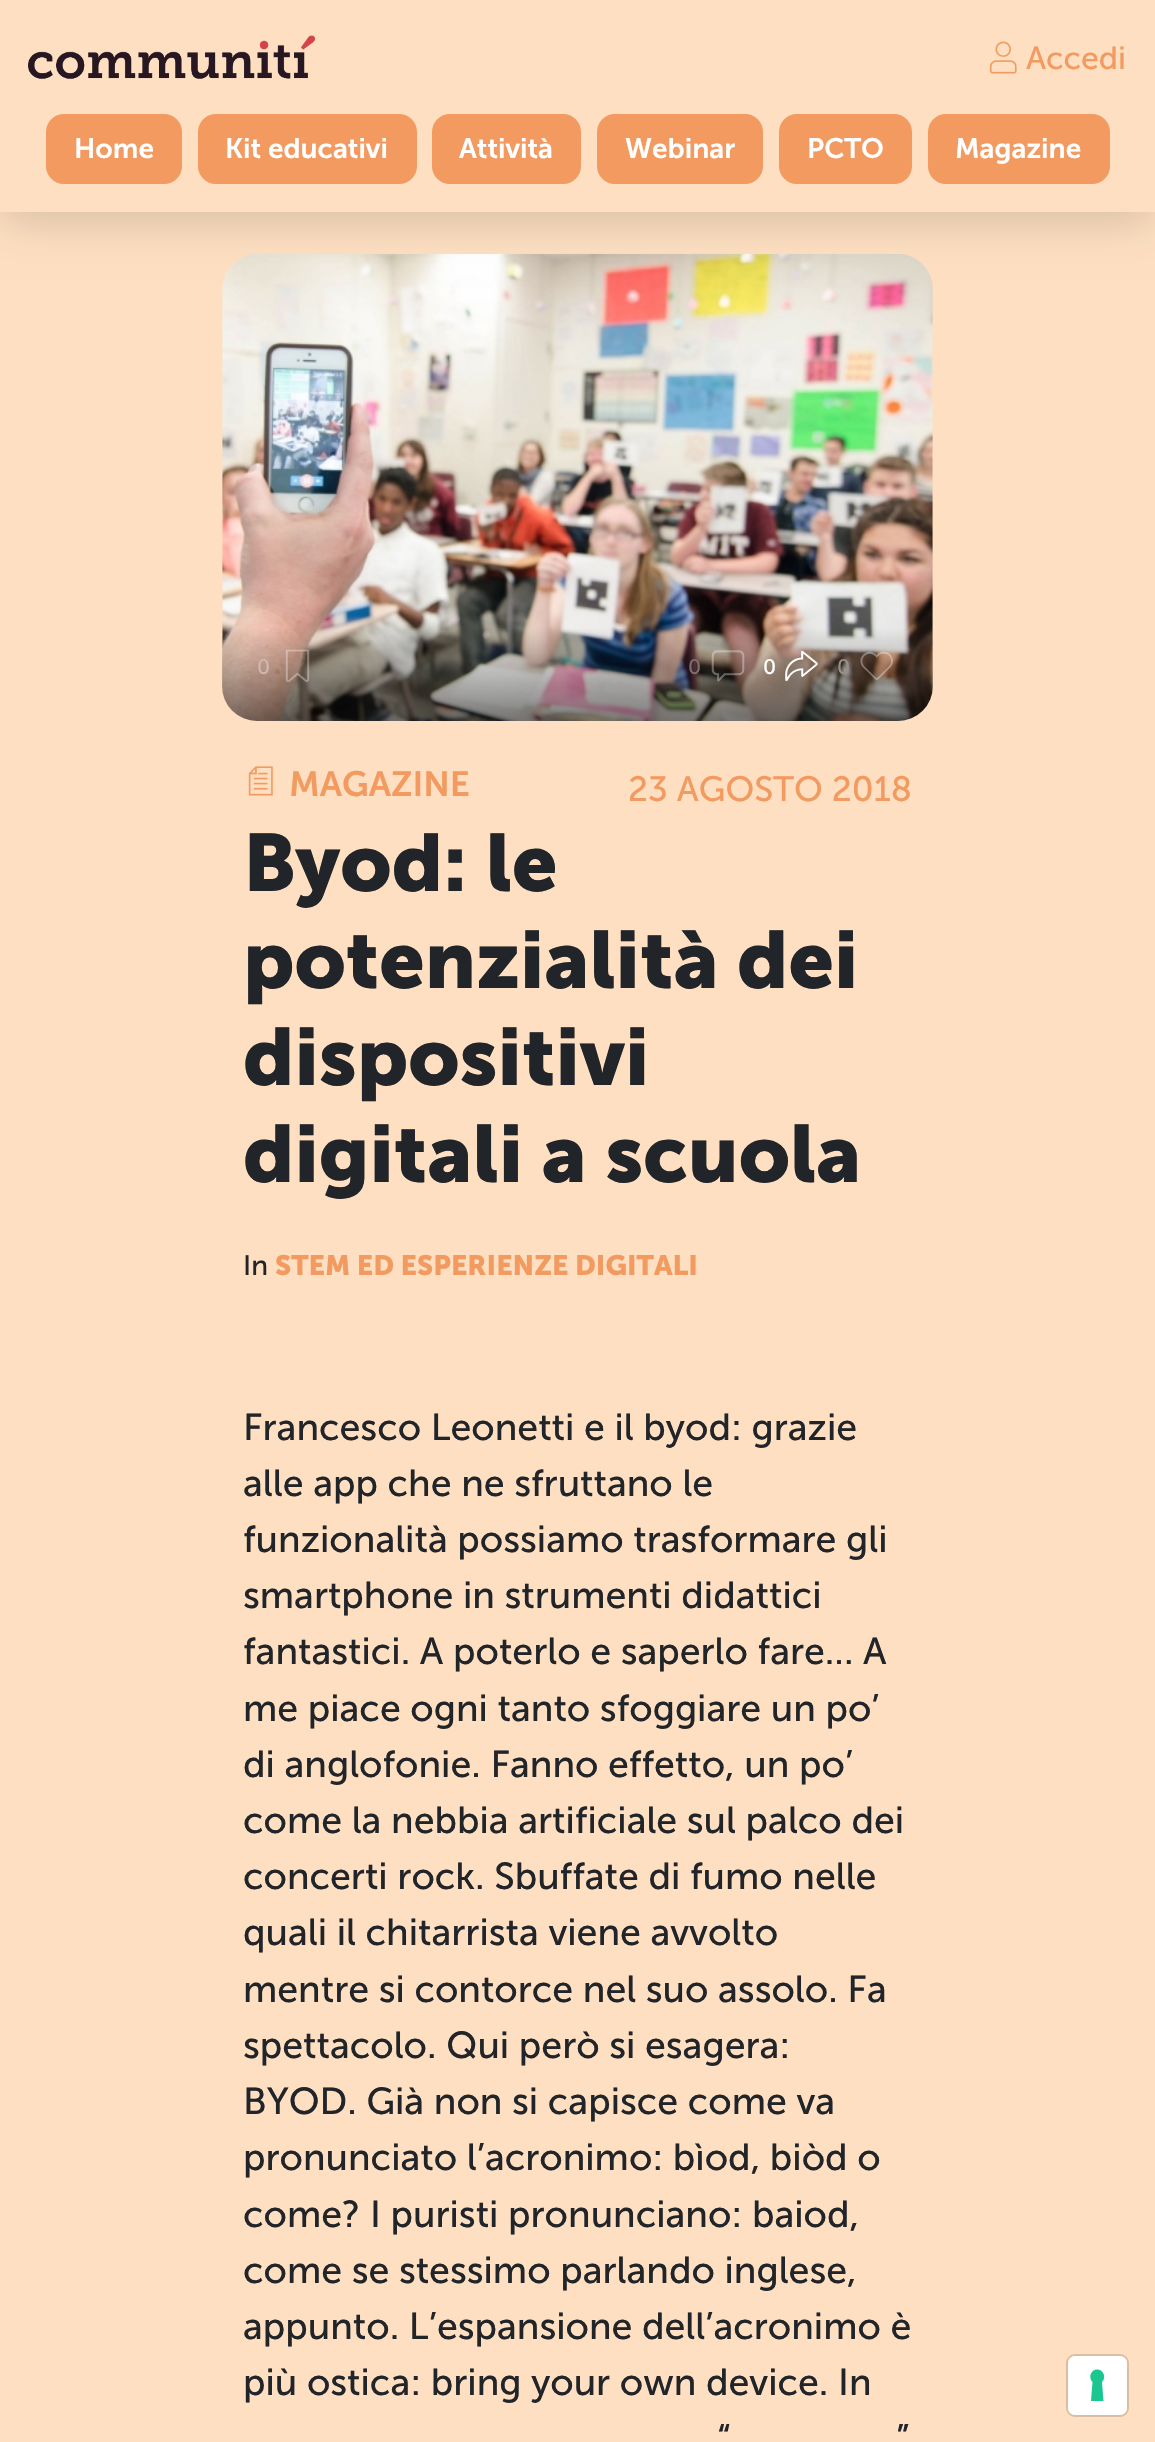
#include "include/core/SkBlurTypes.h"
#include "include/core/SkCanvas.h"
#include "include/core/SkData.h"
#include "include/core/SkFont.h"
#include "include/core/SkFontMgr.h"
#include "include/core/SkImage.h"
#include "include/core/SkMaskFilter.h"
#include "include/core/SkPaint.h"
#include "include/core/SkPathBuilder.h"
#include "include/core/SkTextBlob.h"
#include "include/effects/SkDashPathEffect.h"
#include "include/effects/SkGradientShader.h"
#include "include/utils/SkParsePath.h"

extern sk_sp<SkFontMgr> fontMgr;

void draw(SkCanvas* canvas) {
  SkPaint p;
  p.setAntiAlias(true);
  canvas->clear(SkColorSetRGB(254, 223, 193));
  canvas->drawImageRect(SkImages::DeferredFromEncodedData(SkData::MakeFromFileName("images/3.png")), SkRect::MakeLTRB(222, 253, 933, 721), SkSamplingOptions());
  {
    const SkColor colors[] = {SkColorSetARGB(0, 0, 0, 0), SkColorSetARGB(128, 0, 0, 0)};
    const float stops[] = {0.8f, 1};
    const SkPoint ends[] = {{578, 254}, {578, 721}};
    p.setShader(SkGradientShader::MakeLinear(ends, colors, stops, 2, SkTileMode::kClamp));
    p.setAlpha(255);
  }
  canvas->drawRoundRect(SkRect::MakeLTRB(222, 254, 933, 721), 35, 35, p);
  p.setShader(nullptr);
  p.setColor(SkColorSetARGB(38, 0, 0, 0));
  p.setMaskFilter(SkMaskFilter::MakeBlur(kNormal_SkBlurStyle, 22));
  canvas->drawRect(SkRect::MakeLTRB(0, 9, 1155, 221), p);
  p.setMaskFilter(nullptr);
  p.setColor(SkColorSetRGB(254, 223, 193));
  canvas->drawRect(SkRect::MakeLTRB(0, 0, 1155, 212), p);
  canvas->drawImageRect(SkImages::DeferredFromEncodedData(SkData::MakeFromFileName("images/1.png")), SkRect::MakeLTRB(28, 35, 315, 79), SkSamplingOptions());
  canvas->drawImageRect(SkImages::DeferredFromEncodedData(SkData::MakeFromFileName("images/2.png")), SkRect::MakeLTRB(989, 41, 1017, 74), SkSamplingOptions());
  p.setColor(SkColorSetRGB(242, 154, 95));
  canvas->drawRoundRect(SkRect::MakeLTRB(46, 114, 182, 184), 18, 18, p);
  canvas->drawRoundRect(SkRect::MakeLTRB(198, 114, 417, 184), 18, 18, p);
  canvas->drawRoundRect(SkRect::MakeLTRB(432, 114, 581, 184), 18, 18, p);
  canvas->drawRoundRect(SkRect::MakeLTRB(597, 114, 763, 184), 18, 18, p);
  canvas->drawRoundRect(SkRect::MakeLTRB(779, 114, 912, 184), 18, 18, p);
  canvas->drawRoundRect(SkRect::MakeLTRB(928, 114, 1110, 184), 18, 18, p);
  canvas->drawImageRect(SkImages::DeferredFromEncodedData(SkData::MakeFromFileName("images/4.png")), SkRect::MakeLTRB(285, 649, 310, 683), SkSamplingOptions());
  canvas->drawImageRect(SkImages::DeferredFromEncodedData(SkData::MakeFromFileName("images/5.png")), SkRect::MakeLTRB(711, 650, 745, 682), SkSamplingOptions());
  canvas->drawImageRect(SkImages::DeferredFromEncodedData(SkData::MakeFromFileName("images/6.png")), SkRect::MakeLTRB(785, 650, 818, 681), SkSamplingOptions());
  canvas->drawImageRect(SkImages::DeferredFromEncodedData(SkData::MakeFromFileName("images/7.png")), SkRect::MakeLTRB(860, 651, 893, 680), SkSamplingOptions());
  canvas->drawImageRect(SkImages::DeferredFromEncodedData(SkData::MakeFromFileName("images/8.png")), SkRect::MakeLTRB(248, 766, 273, 796), SkSamplingOptions());
  p.setStyle(SkPaint::kStroke_Style);
  p.setStrokeWidth(2);
  p.setColor(SkColorSetRGB(216, 190, 164));
  canvas->drawRoundRect(SkRect::MakeLTRB(1067, 2355, 1128, 2416), 8, 8, p);
  p.setStyle(SkPaint::kFill_Style);
  p.setColor(SK_ColorWHITE);
  canvas->drawRoundRect(SkRect::MakeLTRB(1068, 2356, 1127, 2415), 7, 7, p);
  p.setColor(SkColorSetRGB(28, 198, 145));
  canvas->drawPath(SkPathBuilder(SkPathFillType::kEvenOdd).moveTo(1097, 2369.5f).cubicTo(1103.5f, 2369.5f, 1106.5f, 2377.5f, 1102, 2382).lineTo(1103.5f, 2401).lineTo(1091, 2401).lineTo(1092.5f, 2382).cubicTo(1088, 2377.5f, 1091, 2369.5f, 1097, 2369.5f).close().detach(), p);
  SkFont font1(fontMgr->matchFamilyStyle("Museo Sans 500", SkFontStyle::Normal()), 32);
  font1.setSubpixel(true);
  p.setColor(SkColorSetRGB(242, 154, 95));
  canvas->drawString("Accedi", 1026, 69, font1, p);
  SkFont font2(fontMgr->matchFamilyStyle("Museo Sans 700", SkFontStyle(600, SkFontStyle::kNormal_Width, SkFontStyle::kUpright_Slant)), 28);
  font2.setSubpixel(true);
  p.setColor(SK_ColorWHITE);
  canvas->drawString("Home", 74, 158, font2, p);
  canvas->drawString("Kit educativi", 225, 158, font2, p);
  canvas->drawString("Attività", 459, 158, font2, p);
  canvas->drawString("Webinar", 625, 158, font2, p);
  canvas->drawString("PCTO", 807, 158, font2, p);
  canvas->drawString("Magazine", 955, 158, font2, p);
  SkFont font3(fontMgr->matchFamilyStyle("Museo Sans 500", SkFontStyle::Normal()), 21);
  font3.setSubpixel(true);
  p.setColor(SkColorSetRGB(207, 183, 174));
  canvas->drawString("0", 257, 674, font3, p);
  p.setColor(SkColorSetRGB(124, 109, 110));
  canvas->drawString("0", 688, 674, font3, p);
  p.setColor(SK_ColorWHITE);
  canvas->drawString("0", 763, 674, font3, p);
  p.setColor(SkColorSetRGB(149, 144, 138));
  canvas->drawString("0", 837, 674, font3, p);
  SkFont font4(fontMgr->matchFamilyStyle("Museo Sans 700", SkFontStyle(600, SkFontStyle::kNormal_Width, SkFontStyle::kUpright_Slant)), 35);
  font4.setSubpixel(true);
  p.setColor(SkColorSetRGB(242, 154, 95));
  canvas->drawString("MAGAZINE", 289, 796, font4, p);
  SkFont font5(fontMgr->matchFamilyStyle("Museo Sans 500", SkFontStyle::Normal()), 35);
  font5.setSubpixel(true);
  canvas->drawString("23 AGOSTO 2018", 628, 801, font5, p);
  SkFont font6(fontMgr->matchFamilyStyle("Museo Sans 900", SkFontStyle::Bold()), 80.75f);
  font6.setSubpixel(true);
  p.setColor(SkColorSetRGB(33, 37, 41));
  canvas->drawString("Byod: le", 243, 891, font6, p);
  canvas->drawString("potenzialità dei", 243, 988, font6, p);
  canvas->drawString("dispositivi", 243, 1085, font6, p);
  canvas->drawString("digitali a scuola", 243, 1182, font6, p);
  SkFont font7(fontMgr->matchFamilyStyle("Museo Sans 500", SkFontStyle::Normal()), 28);
  font7.setSubpixel(true);
  canvas->drawString("In", 243, 1275, font7, p);
  SkFont font8(fontMgr->matchFamilyStyle("Museo Sans 900", SkFontStyle::Bold()), 28);
  font8.setSubpixel(true);
  p.setColor(SkColorSetRGB(242, 154, 95));
  canvas->drawString("STEM ED ESPERIENZE DIGITALI", 275, 1275, font8, p);
  SkFont font9(fontMgr->matchFamilyStyle("Museo Sans 500", SkFontStyle::Normal()), 37.5f);
  font9.setSubpixel(true);
  p.setColor(SkColorSetRGB(33, 37, 41));
  canvas->drawString("Francesco Leonetti e il byod: grazie", 243, 1440, font9, p);
  canvas->drawString("alle app che ne sfruttano le", 243, 1496, font9, p);
  canvas->drawString("funzionalità possiamo trasformare gli", 243, 1552, font9, p);
  canvas->drawString("smartphone in strumenti didattici", 243, 1608, font9, p);
  canvas->drawString("fantastici. A poterlo e saperlo fare... A", 243, 1664, font9, p);
  canvas->drawString("me piace ogni tanto sfoggiare un po’", 243, 1721, font9, p);
  canvas->drawString("di anglofonie. Fanno effetto, un po’", 243, 1777, font9, p);
  canvas->drawString("come la nebbia artificiale sul palco dei", 243, 1833, font9, p);
  canvas->drawString("concerti rock. Sbuffate di fumo nelle", 243, 1889, font9, p);
  canvas->drawString("quali il chitarrista viene avvolto", 243, 1945, font9, p);
  canvas->drawString("mentre si contorce nel suo assolo. Fa", 243, 2002, font9, p);
  canvas->drawString("spettacolo. Qui però si esagera:", 243, 2058, font9, p);
  canvas->drawString("BYOD. Già non si capisce come va", 243, 2114, font9, p);
  canvas->drawString("pronunciato l’acronimo: bìod, biòd o", 243, 2170, font9, p);
  canvas->drawString("come? I puristi pronunciano: baiod,", 243, 2227, font9, p);
  canvas->drawString("come se stessimo parlando inglese,", 243, 2283, font9, p);
  canvas->drawString("appunto. L’espansione dell’acronimo è", 243, 2339, font9, p);
  canvas->drawString("più ostica: bring your own device. In", 243, 2395, font9, p);
  canvas->drawString("“", 717, 2451, font9, p);
  canvas->drawString("”", 896, 2451, font9, p);
}
